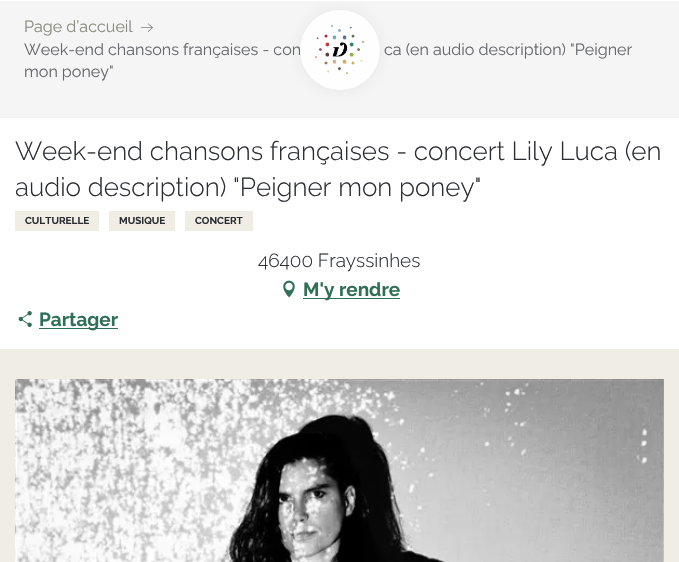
#include "include/core/SkBlurTypes.h"
#include "include/core/SkCanvas.h"
#include "include/core/SkData.h"
#include "include/core/SkFont.h"
#include "include/core/SkFontMgr.h"
#include "include/core/SkImage.h"
#include "include/core/SkMaskFilter.h"
#include "include/core/SkPaint.h"
#include "include/core/SkPathBuilder.h"
#include "include/core/SkTextBlob.h"
#include "include/effects/SkDashPathEffect.h"
#include "include/effects/SkGradientShader.h"
#include "include/utils/SkParsePath.h"

extern sk_sp<SkFontMgr> fontMgr;

void draw(SkCanvas* canvas) {
  SkPaint p;
  p.setAntiAlias(true);
  canvas->clear(SK_ColorWHITE);
  p.setColor(SkColorSetRGB(245, 245, 245));
  canvas->drawRect(SkRect::MakeLTRB(0, 1, 679, 118), p);
  p.setColor(SkColorSetARGB(20, 43, 45, 51));
  p.setMaskFilter(SkMaskFilter::MakeBlur(kNormal_SkBlurStyle, 8));
  canvas->drawRoundRect(SkRect::MakeLTRB(300, 10, 380, 90), 40, 40, p);
  p.setMaskFilter(nullptr);
  canvas->drawImageRect(SkImages::DeferredFromEncodedData(SkData::MakeFromFileName("images/2.png")), SkRect::MakeLTRB(140, 23, 153, 32), SkSamplingOptions());
  p.setColor(SkColorSetRGB(240, 237, 228));
  canvas->drawRect(SkRect::MakeLTRB(15, 211, 99, 231), p);
  canvas->drawRect(SkRect::MakeLTRB(109, 211, 175, 231), p);
  canvas->drawRect(SkRect::MakeLTRB(185, 211, 253, 231), p);
  canvas->drawImageRect(SkImages::DeferredFromEncodedData(SkData::MakeFromFileName("images/3.png")), SkRect::MakeLTRB(283, 280, 295, 298), SkSamplingOptions());
  p.setColor(SkColorSetRGB(47, 112, 86));
  canvas->drawRect(SkRect::MakeLTRB(303, 298, 400, 299), p);
  canvas->drawImageRect(SkImages::DeferredFromEncodedData(SkData::MakeFromFileName("images/4.png")), SkRect::MakeLTRB(18, 311, 32, 327), SkSamplingOptions());
  canvas->drawRect(SkRect::MakeLTRB(39, 328, 118, 329), p);
  p.setColor(SkColorSetRGB(240, 237, 228));
  canvas->drawRect(SkRect::MakeLTRB(0, 349, 679, 562), p);
  canvas->drawImageRect(SkImages::DeferredFromEncodedData(SkData::MakeFromFileName("images/5.png")), SkRect::MakeLTRB(15, 379, 664, 562), SkSamplingOptions());
  SkFont font1(fontMgr->matchFamilyStyle("Raleway", SkFontStyle::Normal()), 16.1f);
  font1.setSubpixel(true);
  p.setColor(SkColorSetRGB(138, 140, 128));
  canvas->drawString("Page d’accueil", 24, 32, font1, p);
  p.setColor(SkColorSetRGB(104, 105, 109));
  canvas->drawString("Week-end chansons françaises - con", 24, 55, font1, p);
  p.setColor(SkColorSetRGB(254, 254, 254));
  canvas->drawCircle(340, 50, 40, p);
  canvas->drawImageRect(SkImages::DeferredFromEncodedData(SkData::MakeFromFileName("images/1.png")), SkRect::MakeLTRB(315, 25, 364, 74), SkSamplingOptions());
  p.setColor(SkColorSetRGB(104, 105, 109));
  canvas->drawString("ca (en audio description) \"Peigner", 384, 55, font1, p);
  canvas->drawString("mon poney\"", 24, 77, font1, p);
  SkFont font2(fontMgr->matchFamilyStyle("Raleway", SkFontStyle(300, SkFontStyle::kNormal_Width, SkFontStyle::kUpright_Slant)), 26);
  font2.setSubpixel(true);
  p.setColor(SkColorSetRGB(43, 45, 51));
  canvas->drawString("Week-end chansons françaises - concert Lily Luca (en", 15, 160, font2, p);
  canvas->drawString("audio description) \"Peigner mon poney\"", 15, 196, font2, p);
  SkFont font3(fontMgr->matchFamilyStyle("Raleway", SkFontStyle::Bold()), 10);
  font3.setSubpixel(true);
  canvas->drawString("CULTURELLE", 25, 224, font3, p);
  canvas->drawString("MUSIQUE", 119, 224, font3, p);
  canvas->drawString("CONCERT", 195, 224, font3, p);
  SkFont font4(fontMgr->matchFamilyStyle("Raleway", SkFontStyle(300, SkFontStyle::kNormal_Width, SkFontStyle::kUpright_Slant)), 19);
  font4.setSubpixel(true);
  canvas->drawString("46400 Frayssinhes", 258, 267, font4, p);
  SkFont font5(fontMgr->matchFamilyStyle("Raleway", SkFontStyle::Bold()), 19);
  font5.setSubpixel(true);
  p.setColor(SkColorSetRGB(47, 112, 86));
  canvas->drawString("M'y rendre", 303, 296, font5, p);
  canvas->drawString("Partager", 39, 326, font5, p);
}
